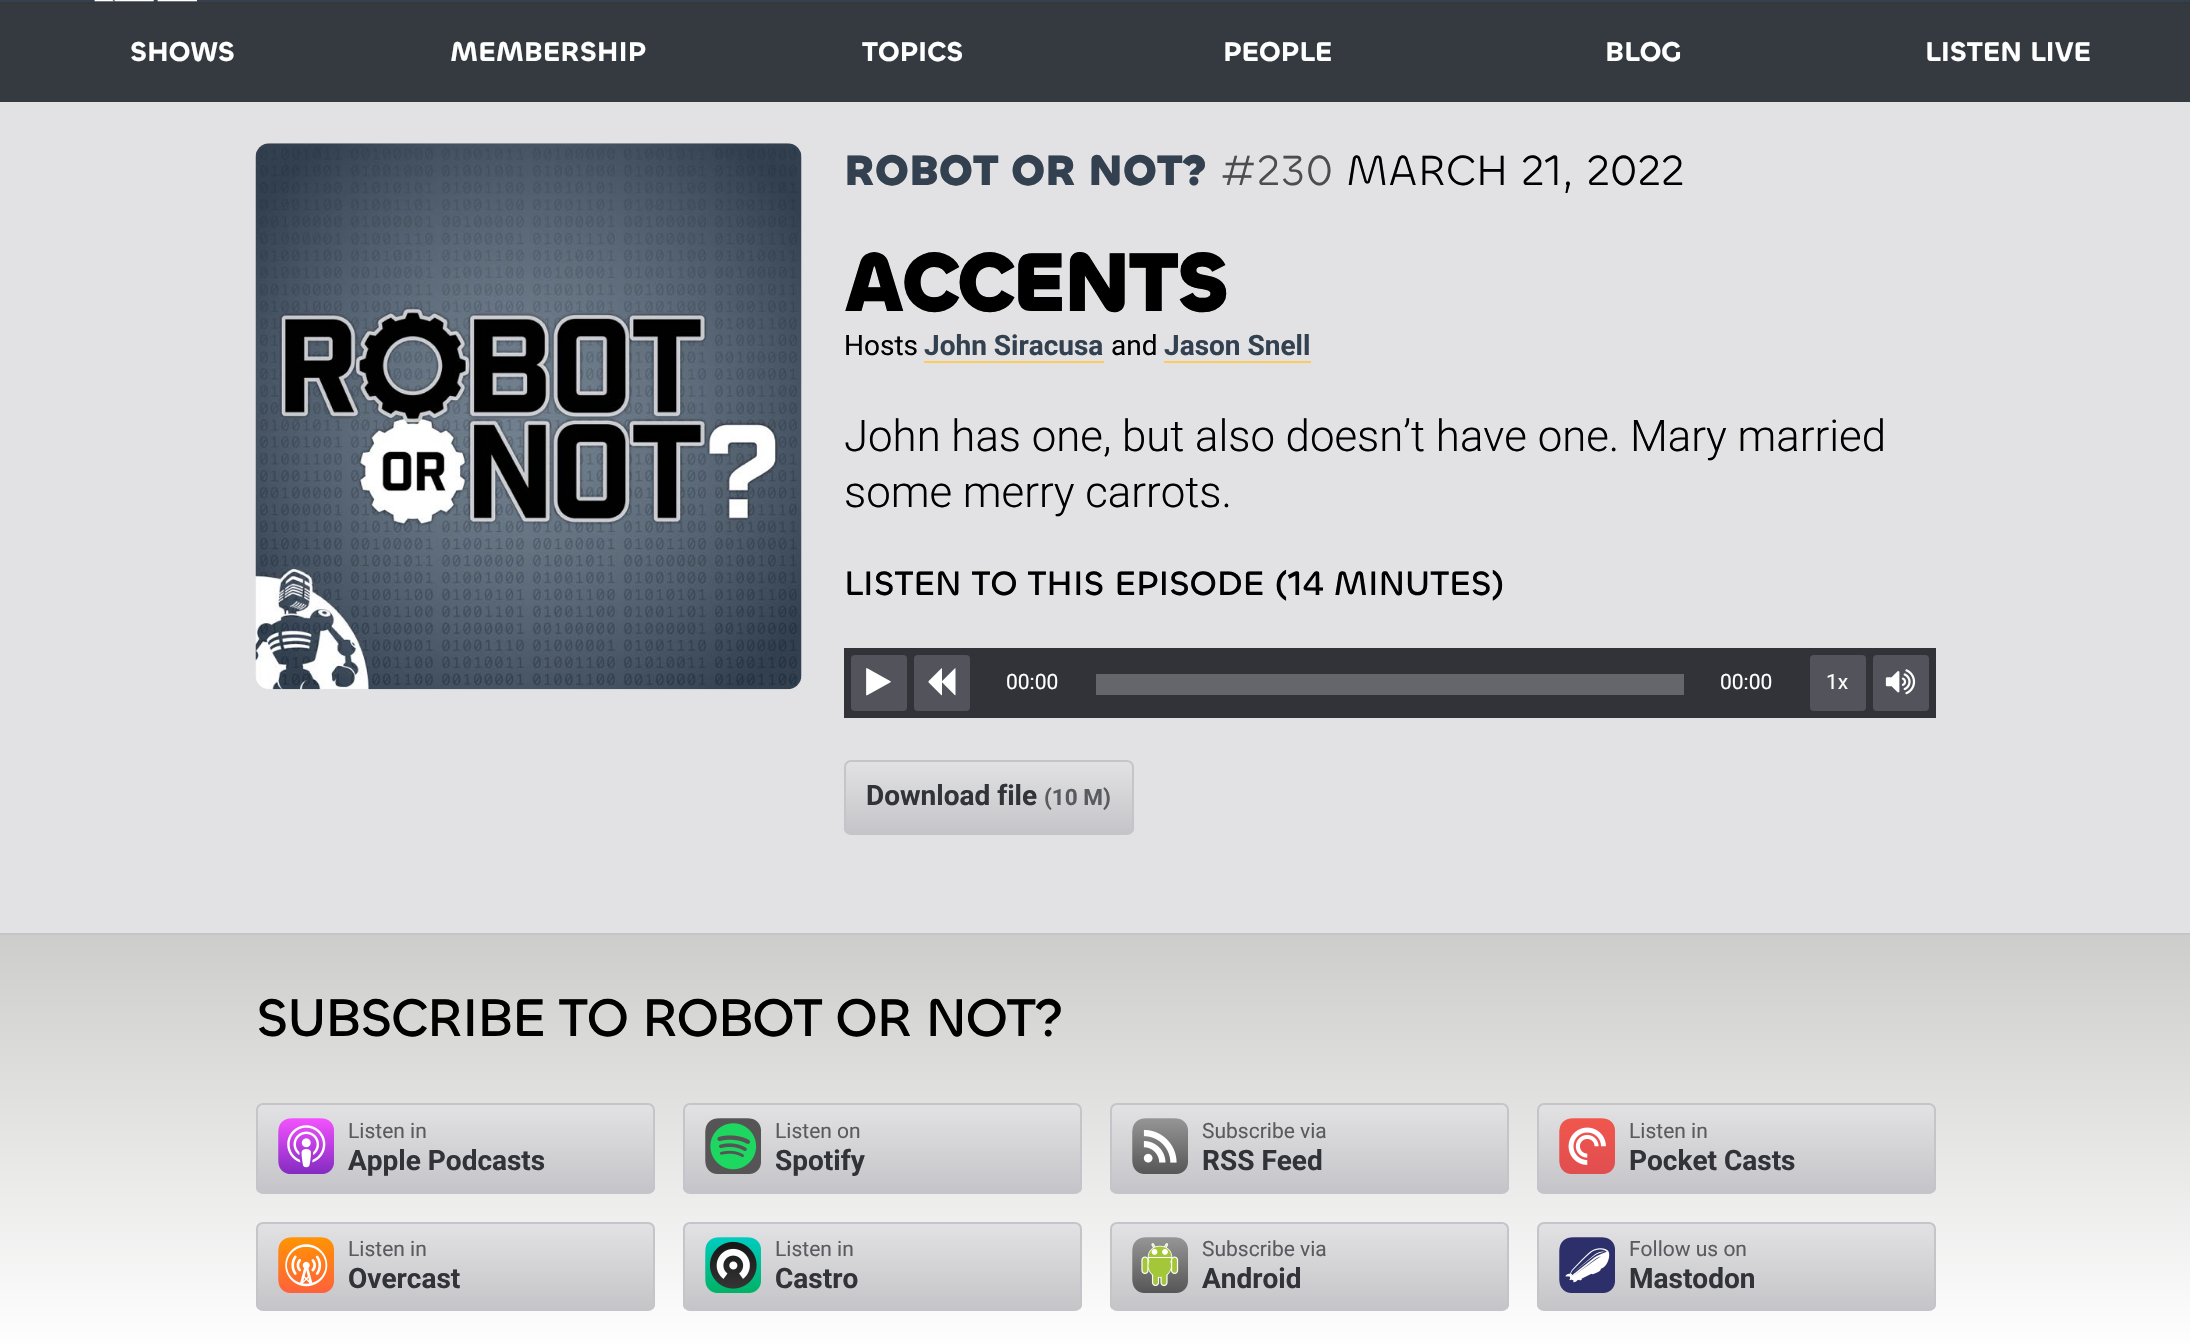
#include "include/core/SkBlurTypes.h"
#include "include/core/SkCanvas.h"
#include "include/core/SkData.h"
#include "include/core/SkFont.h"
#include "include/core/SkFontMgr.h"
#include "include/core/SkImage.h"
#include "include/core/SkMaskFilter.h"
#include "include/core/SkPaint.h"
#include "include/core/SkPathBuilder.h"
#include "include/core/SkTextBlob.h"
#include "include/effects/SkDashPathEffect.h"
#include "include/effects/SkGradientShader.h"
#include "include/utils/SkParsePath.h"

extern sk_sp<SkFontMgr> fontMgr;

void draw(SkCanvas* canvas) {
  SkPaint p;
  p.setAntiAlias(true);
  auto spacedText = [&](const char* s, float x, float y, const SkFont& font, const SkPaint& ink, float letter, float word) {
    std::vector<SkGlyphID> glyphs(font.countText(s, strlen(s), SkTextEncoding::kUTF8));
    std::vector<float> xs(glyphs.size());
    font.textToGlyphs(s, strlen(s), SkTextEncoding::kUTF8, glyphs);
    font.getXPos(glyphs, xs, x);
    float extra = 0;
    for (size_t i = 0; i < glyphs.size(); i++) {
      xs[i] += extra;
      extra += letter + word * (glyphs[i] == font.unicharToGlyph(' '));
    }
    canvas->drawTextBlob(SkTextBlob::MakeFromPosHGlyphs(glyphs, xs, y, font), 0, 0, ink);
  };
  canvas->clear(SkColorSetRGB(51, 64, 79));
  canvas->drawImageRect(SkImages::DeferredFromEncodedData(SkData::MakeFromFileName("images/1.png")), SkRect::MakeLTRB(94, 0, 197, 2), SkSamplingOptions());
  p.setColor(SkColorSetRGB(52, 58, 64));
  canvas->drawRect(SkRect::MakeLTRB(0, 4, 2190, 102), p);
  p.setColor(SkColorSetRGB(53, 55, 57));
  canvas->drawRect(SkRect::MakeLTRB(0, 2, 2190, 4), p);
  p.setColor(SkColorSetRGB(226, 226, 228));
  canvas->drawRect(SkRect::MakeLTRB(0, 102, 2190, 933), p);
  p.setColor(SkColorSetRGB(197, 197, 201));
  canvas->drawRect(SkRect::MakeLTRB(0, 933, 2190, 935), p);
  canvas->drawImageRect(SkImages::DeferredFromEncodedData(SkData::MakeFromFileName("images/2.png")), SkRect::MakeLTRB(255, 143, 802, 690), SkSamplingOptions());
  p.setColor(SkColorSetRGB(253, 202, 94));
  canvas->drawRect(SkRect::MakeLTRB(924, 361, 1104, 363), p);
  canvas->drawRect(SkRect::MakeLTRB(1164, 361, 1311, 363), p);
  p.setColor(SkColorSetRGB(50, 51, 57));
  canvas->drawRect(SkRect::MakeLTRB(844, 648, 1936, 718), p);
  p.setColor(SkColorSetRGB(82, 83, 91));
  canvas->drawRoundRect(SkRect::MakeLTRB(851, 655, 907, 711), 4, 4, p);
  canvas->drawImageRect(SkImages::DeferredFromEncodedData(SkData::MakeFromFileName("images/3.png")), SkRect::MakeLTRB(866, 668, 891, 696), SkSamplingOptions());
  canvas->drawRoundRect(SkRect::MakeLTRB(914, 655, 970, 711), 4, 4, p);
  canvas->drawImageRect(SkImages::DeferredFromEncodedData(SkData::MakeFromFileName("images/4.png")), SkRect::MakeLTRB(928, 668, 956, 696), SkSamplingOptions());
  p.setColor(SkColorSetRGB(101, 102, 107));
  canvas->drawRect(SkRect::MakeLTRB(1096, 674, 1684, 695), p);
  p.setColor(SkColorSetRGB(82, 83, 91));
  canvas->drawRoundRect(SkRect::MakeLTRB(1810, 655, 1866, 711), 4, 4, p);
  canvas->drawRoundRect(SkRect::MakeLTRB(1873, 655, 1929, 711), 4, 4, p);
  canvas->drawImageRect(SkImages::DeferredFromEncodedData(SkData::MakeFromFileName("images/5.png")), SkRect::MakeLTRB(1885, 669, 1916, 695), SkSamplingOptions());
  canvas->save();
  canvas->clipPath(SkPathBuilder().moveTo(851, 760).lineTo(1127, 760).cubicTo(1131, 760, 1134, 763, 1134, 767).lineTo(1134, 828).cubicTo(1134, 832, 1131, 835, 1127, 835).lineTo(851, 835).cubicTo(847, 835, 844, 832, 844, 828).lineTo(844, 767).cubicTo(844, 763, 847, 760, 851, 760).close().detach(), true);
  {
    const SkColor colors[] = {SkColorSetRGB(197, 197, 201), SkColorSetRGB(226, 226, 228)};
    const float stops[] = {0, 1};
    const SkPoint ends[] = {{989, 833}, {989, 761}};
    p.setShader(SkGradientShader::MakeLinear(ends, colors, stops, 2, SkTileMode::kClamp));
    p.setAlpha(255);
  }
  canvas->drawRect(SkRect::MakeLTRB(844, 761, 1134, 833), p);
  canvas->restore();
  p.setStyle(SkPaint::kStroke_Style);
  p.setStrokeWidth(2);
  p.setShader(nullptr);
  p.setColor(SkColorSetRGB(197, 197, 201));
  canvas->drawRoundRect(SkRect::MakeLTRB(845, 761, 1133, 834), 6, 6, p);
  p.setStyle(SkPaint::kFill_Style);
  {
    const SkColor colors[] = {SK_ColorWHITE, SkColorSetRGB(205, 205, 204)};
    const float stops[] = {0, 1};
    const SkPoint ends[] = {{1096, 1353}, {1096, 935}};
    p.setShader(SkGradientShader::MakeLinear(ends, colors, stops, 2, SkTileMode::kClamp));
    p.setAlpha(255);
  }
  canvas->drawRect(SkRect::MakeLTRB(0, 935, 2190, 1344), p);
  canvas->save();
  canvas->clipPath(SkPathBuilder().moveTo(263, 1103).lineTo(648, 1103).cubicTo(652, 1103, 655, 1106, 655, 1110).lineTo(655, 1187).cubicTo(655, 1191, 652, 1194, 648, 1194).lineTo(263, 1194).cubicTo(259, 1194, 256, 1191, 256, 1187).lineTo(256, 1110).cubicTo(256, 1106, 259, 1103, 263, 1103).close().detach(), true);
  {
    const SkColor colors[] = {SkColorSetRGB(197, 197, 201), SkColorSetRGB(226, 226, 228)};
    const float stops[] = {0, 1};
    const SkPoint ends[] = {{455, 1192}, {455, 1104}};
    p.setShader(SkGradientShader::MakeLinear(ends, colors, stops, 2, SkTileMode::kClamp));
    p.setAlpha(255);
  }
  canvas->drawRect(SkRect::MakeLTRB(256, 1104, 655, 1192), p);
  canvas->restore();
  p.setStyle(SkPaint::kStroke_Style);
  p.setShader(nullptr);
  p.setColor(SkColorSetRGB(197, 197, 201));
  canvas->drawRoundRect(SkRect::MakeLTRB(257, 1104, 654, 1193), 6, 6, p);
  canvas->drawImageRect(SkImages::DeferredFromEncodedData(SkData::MakeFromFileName("images/6.png")), SkRect::MakeLTRB(278, 1118, 334, 1174), SkSamplingOptions());
  canvas->save();
  canvas->clipPath(SkPathBuilder().moveTo(690, 1103).lineTo(1075, 1103).cubicTo(1079, 1103, 1082, 1106, 1082, 1110).lineTo(1082, 1187).cubicTo(1082, 1191, 1079, 1194, 1075, 1194).lineTo(690, 1194).cubicTo(686, 1194, 683, 1191, 683, 1187).lineTo(683, 1110).cubicTo(683, 1106, 686, 1103, 690, 1103).close().detach(), true);
  p.setStyle(SkPaint::kFill_Style);
  {
    const SkColor colors[] = {SkColorSetRGB(197, 197, 201), SkColorSetRGB(226, 226, 228)};
    const float stops[] = {0, 1};
    const SkPoint ends[] = {{882, 1192}, {882, 1104}};
    p.setShader(SkGradientShader::MakeLinear(ends, colors, stops, 2, SkTileMode::kClamp));
    p.setAlpha(255);
  }
  canvas->drawRect(SkRect::MakeLTRB(683, 1104, 1082, 1192), p);
  canvas->restore();
  p.setStyle(SkPaint::kStroke_Style);
  p.setShader(nullptr);
  p.setColor(SkColorSetRGB(197, 197, 201));
  canvas->drawRoundRect(SkRect::MakeLTRB(684, 1104, 1081, 1193), 6, 6, p);
  canvas->drawImageRect(SkImages::DeferredFromEncodedData(SkData::MakeFromFileName("images/7.png")), SkRect::MakeLTRB(705, 1118, 761, 1174), SkSamplingOptions());
  canvas->save();
  canvas->clipPath(SkPathBuilder().moveTo(1117, 1103).lineTo(1502, 1103).cubicTo(1506, 1103, 1509, 1106, 1509, 1110).lineTo(1509, 1187).cubicTo(1509, 1191, 1506, 1194, 1502, 1194).lineTo(1117, 1194).cubicTo(1113, 1194, 1110, 1191, 1110, 1187).lineTo(1110, 1110).cubicTo(1110, 1106, 1113, 1103, 1117, 1103).close().detach(), true);
  p.setStyle(SkPaint::kFill_Style);
  {
    const SkColor colors[] = {SkColorSetRGB(197, 197, 201), SkColorSetRGB(226, 226, 228)};
    const float stops[] = {0, 1};
    const SkPoint ends[] = {{1309, 1192}, {1309, 1104}};
    p.setShader(SkGradientShader::MakeLinear(ends, colors, stops, 2, SkTileMode::kClamp));
    p.setAlpha(255);
  }
  canvas->drawRect(SkRect::MakeLTRB(1110, 1104, 1509, 1192), p);
  canvas->restore();
  p.setStyle(SkPaint::kStroke_Style);
  p.setShader(nullptr);
  p.setColor(SkColorSetRGB(197, 197, 201));
  canvas->drawRoundRect(SkRect::MakeLTRB(1111, 1104, 1508, 1193), 6, 6, p);
  canvas->drawImageRect(SkImages::DeferredFromEncodedData(SkData::MakeFromFileName("images/8.png")), SkRect::MakeLTRB(1132, 1118, 1188, 1174), SkSamplingOptions());
  canvas->save();
  canvas->clipPath(SkPathBuilder().moveTo(1544, 1103).lineTo(1929, 1103).cubicTo(1933, 1103, 1936, 1106, 1936, 1110).lineTo(1936, 1187).cubicTo(1936, 1191, 1933, 1194, 1929, 1194).lineTo(1544, 1194).cubicTo(1540, 1194, 1537, 1191, 1537, 1187).lineTo(1537, 1110).cubicTo(1537, 1106, 1540, 1103, 1544, 1103).close().detach(), true);
  p.setStyle(SkPaint::kFill_Style);
  {
    const SkColor colors[] = {SkColorSetRGB(197, 197, 201), SkColorSetRGB(226, 226, 228)};
    const float stops[] = {0, 1};
    const SkPoint ends[] = {{1736, 1192}, {1736, 1104}};
    p.setShader(SkGradientShader::MakeLinear(ends, colors, stops, 2, SkTileMode::kClamp));
    p.setAlpha(255);
  }
  canvas->drawRect(SkRect::MakeLTRB(1537, 1104, 1936, 1192), p);
  canvas->restore();
  p.setStyle(SkPaint::kStroke_Style);
  p.setShader(nullptr);
  p.setColor(SkColorSetRGB(197, 197, 201));
  canvas->drawRoundRect(SkRect::MakeLTRB(1538, 1104, 1935, 1193), 6, 6, p);
  canvas->drawImageRect(SkImages::DeferredFromEncodedData(SkData::MakeFromFileName("images/9.png")), SkRect::MakeLTRB(1559, 1118, 1615, 1174), SkSamplingOptions());
  canvas->save();
  canvas->clipPath(SkPathBuilder().moveTo(263, 1222).lineTo(648, 1222).cubicTo(652, 1222, 655, 1225, 655, 1229).lineTo(655, 1304).cubicTo(655, 1308, 652, 1311, 648, 1311).lineTo(263, 1311).cubicTo(259, 1311, 256, 1308, 256, 1304).lineTo(256, 1229).cubicTo(256, 1225, 259, 1222, 263, 1222).close().detach(), true);
  p.setStyle(SkPaint::kFill_Style);
  {
    const SkColor colors[] = {SkColorSetRGB(197, 197, 201), SkColorSetRGB(226, 226, 228)};
    const float stops[] = {0, 1};
    const SkPoint ends[] = {{455, 1309}, {455, 1223}};
    p.setShader(SkGradientShader::MakeLinear(ends, colors, stops, 2, SkTileMode::kClamp));
    p.setAlpha(255);
  }
  canvas->drawRect(SkRect::MakeLTRB(256, 1223, 655, 1309), p);
  canvas->restore();
  p.setStyle(SkPaint::kStroke_Style);
  p.setShader(nullptr);
  p.setColor(SkColorSetRGB(197, 197, 201));
  canvas->drawRoundRect(SkRect::MakeLTRB(257, 1223, 654, 1310), 6, 6, p);
  canvas->drawImageRect(SkImages::DeferredFromEncodedData(SkData::MakeFromFileName("images/10.png")), SkRect::MakeLTRB(278, 1237, 334, 1293), SkSamplingOptions());
  canvas->save();
  canvas->clipPath(SkPathBuilder().moveTo(690, 1222).lineTo(1075, 1222).cubicTo(1079, 1222, 1082, 1225, 1082, 1229).lineTo(1082, 1304).cubicTo(1082, 1308, 1079, 1311, 1075, 1311).lineTo(690, 1311).cubicTo(686, 1311, 683, 1308, 683, 1304).lineTo(683, 1229).cubicTo(683, 1225, 686, 1222, 690, 1222).close().detach(), true);
  p.setStyle(SkPaint::kFill_Style);
  {
    const SkColor colors[] = {SkColorSetRGB(197, 197, 201), SkColorSetRGB(226, 226, 228)};
    const float stops[] = {0, 1};
    const SkPoint ends[] = {{882, 1309}, {882, 1223}};
    p.setShader(SkGradientShader::MakeLinear(ends, colors, stops, 2, SkTileMode::kClamp));
    p.setAlpha(255);
  }
  canvas->drawRect(SkRect::MakeLTRB(683, 1223, 1082, 1309), p);
  canvas->restore();
  p.setStyle(SkPaint::kStroke_Style);
  p.setShader(nullptr);
  p.setColor(SkColorSetRGB(197, 197, 201));
  canvas->drawRoundRect(SkRect::MakeLTRB(684, 1223, 1081, 1310), 6, 6, p);
  canvas->drawImageRect(SkImages::DeferredFromEncodedData(SkData::MakeFromFileName("images/11.png")), SkRect::MakeLTRB(705, 1237, 761, 1293), SkSamplingOptions());
  canvas->save();
  canvas->clipPath(SkPathBuilder().moveTo(1117, 1222).lineTo(1502, 1222).cubicTo(1506, 1222, 1509, 1225, 1509, 1229).lineTo(1509, 1304).cubicTo(1509, 1308, 1506, 1311, 1502, 1311).lineTo(1117, 1311).cubicTo(1113, 1311, 1110, 1308, 1110, 1304).lineTo(1110, 1229).cubicTo(1110, 1225, 1113, 1222, 1117, 1222).close().detach(), true);
  p.setStyle(SkPaint::kFill_Style);
  {
    const SkColor colors[] = {SkColorSetRGB(197, 197, 201), SkColorSetRGB(226, 226, 228)};
    const float stops[] = {0, 1};
    const SkPoint ends[] = {{1309, 1309}, {1309, 1223}};
    p.setShader(SkGradientShader::MakeLinear(ends, colors, stops, 2, SkTileMode::kClamp));
    p.setAlpha(255);
  }
  canvas->drawRect(SkRect::MakeLTRB(1110, 1223, 1509, 1309), p);
  canvas->restore();
  p.setStyle(SkPaint::kStroke_Style);
  p.setShader(nullptr);
  p.setColor(SkColorSetRGB(197, 197, 201));
  canvas->drawRoundRect(SkRect::MakeLTRB(1111, 1223, 1508, 1310), 6, 6, p);
  canvas->drawImageRect(SkImages::DeferredFromEncodedData(SkData::MakeFromFileName("images/12.png")), SkRect::MakeLTRB(1132, 1237, 1188, 1293), SkSamplingOptions());
  canvas->save();
  canvas->clipPath(SkPathBuilder().moveTo(1544, 1222).lineTo(1929, 1222).cubicTo(1933, 1222, 1936, 1225, 1936, 1229).lineTo(1936, 1304).cubicTo(1936, 1308, 1933, 1311, 1929, 1311).lineTo(1544, 1311).cubicTo(1540, 1311, 1537, 1308, 1537, 1304).lineTo(1537, 1229).cubicTo(1537, 1225, 1540, 1222, 1544, 1222).close().detach(), true);
  p.setStyle(SkPaint::kFill_Style);
  {
    const SkColor colors[] = {SkColorSetRGB(197, 197, 201), SkColorSetRGB(226, 226, 228)};
    const float stops[] = {0, 1};
    const SkPoint ends[] = {{1736, 1309}, {1736, 1223}};
    p.setShader(SkGradientShader::MakeLinear(ends, colors, stops, 2, SkTileMode::kClamp));
    p.setAlpha(255);
  }
  canvas->drawRect(SkRect::MakeLTRB(1537, 1223, 1936, 1309), p);
  canvas->restore();
  p.setStyle(SkPaint::kStroke_Style);
  p.setShader(nullptr);
  p.setColor(SkColorSetRGB(197, 197, 201));
  canvas->drawRoundRect(SkRect::MakeLTRB(1538, 1223, 1935, 1310), 6, 6, p);
  canvas->drawImageRect(SkImages::DeferredFromEncodedData(SkData::MakeFromFileName("images/13.png")), SkRect::MakeLTRB(1559, 1237, 1615, 1293), SkSamplingOptions());
  SkFont font1(fontMgr->matchFamilyStyle("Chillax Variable", SkFontStyle(600, SkFontStyle::kNormal_Width, SkFontStyle::kUpright_Slant)), 28);
  font1.setSubpixel(true);
  p.setStyle(SkPaint::kFill_Style);
  p.setColor(SK_ColorWHITE);
  canvas->drawString("SHOWS", 130, 61, font1, p);
  canvas->drawString("MEMBERSHIP", 450, 61, font1, p);
  canvas->drawString("TOPICS", 862, 61, font1, p);
  canvas->drawString("PEOPLE", 1223, 61, font1, p);
  canvas->drawString("BLOG", 1605, 61, font1, p);
  canvas->drawString("LISTEN LIVE", 1925, 61, font1, p);
  SkFont font2(fontMgr->matchFamilyStyle("Chillax Variable", SkFontStyle::Bold()), 43.75f);
  font2.setSubpixel(true);
  p.setColor(SkColorSetRGB(51, 64, 79));
  canvas->drawString("ROBOT OR NOT?", 844, 185, font2, p);
  SkFont font3(fontMgr->matchFamilyStyle("Chillax Variable", SkFontStyle::Normal()), 43.75f);
  font3.setSubpixel(true);
  p.setColor(SkColorSetRGB(77, 77, 79));
  canvas->drawString("#230", 1220, 185, font3, p);
  p.setColor(SK_ColorBLACK);
  canvas->drawString("MARCH 21, 2022", 1346, 185, font3, p);
  SkFont font4(fontMgr->matchFamilyStyle("Chillax Variable", SkFontStyle::Bold()), 85.5f);
  font4.setSubpixel(true);
  spacedText("ACCENTS", 844, 311, font4, p, -2.75f, 0);
  SkFont font5(fontMgr->matchFamilyStyle("Roboto", SkFontStyle::Normal()), 28);
  font5.setSubpixel(true);
  canvas->drawString("Hosts", 844, 355, font5, p);
  SkFont font6(fontMgr->matchFamilyStyle("Roboto", SkFontStyle::Bold()), 28);
  font6.setSubpixel(true);
  p.setColor(SkColorSetRGB(51, 64, 79));
  canvas->drawString("John Siracusa", 924, 355, font6, p);
  p.setColor(SK_ColorBLACK);
  canvas->drawString("and", 1111, 355, font5, p);
  p.setColor(SkColorSetRGB(51, 64, 79));
  canvas->drawString("Jason Snell", 1164, 355, font6, p);
  SkFont font7(fontMgr->matchFamilyStyle("Roboto", SkFontStyle(300, SkFontStyle::kNormal_Width, SkFontStyle::kUpright_Slant)), 43.75f);
  font7.setSubpixel(true);
  p.setColor(SK_ColorBLACK);
  canvas->drawString("John has one, but also doesn’t have one. Mary married", 844, 451, font7, p);
  canvas->drawString("some merry carrots.", 844, 507, font7, p);
  SkFont font8(fontMgr->matchFamilyStyle("Chillax Variable", SkFontStyle(500, SkFontStyle::kNormal_Width, SkFontStyle::kUpright_Slant)), 35);
  font8.setSubpixel(true);
  canvas->drawString("LISTEN TO THIS EPISODE (14 MINUTES)", 844, 595, font8, p);
  SkFont font9(fontMgr->matchFamilyStyle("Roboto", SkFontStyle::Normal()), 21);
  font9.setSubpixel(true);
  p.setColor(SK_ColorWHITE);
  canvas->drawString("00:00", 1006, 689, font9, p);
  canvas->drawString("00:00", 1720, 689, font9, p);
  canvas->drawString("1x", 1826, 689, font9, p);
  p.setColor(SkColorSetRGB(50, 51, 57));
  canvas->drawString("Download file", 866, 805, font6, p);
  SkFont font10(fontMgr->matchFamilyStyle("Roboto", SkFontStyle::Bold()), 22.5f);
  font10.setSubpixel(true);
  p.setColor(SkColorSetRGB(90, 91, 96));
  canvas->drawString("(10 M)", 1044, 805, font10, p);
  SkFont font11(fontMgr->matchFamilyStyle("Chillax Variable", SkFontStyle(500, SkFontStyle::kNormal_Width, SkFontStyle::kUpright_Slant)), 54.7f);
  font11.setSubpixel(true);
  p.setColor(SK_ColorBLACK);
  spacedText("SUBSCRIBE TO ROBOT OR NOT?", 256, 1036, font11, p, -1.4f, 0);
  p.setColor(SkColorSetRGB(90, 91, 96));
  canvas->drawString("Listen in", 348, 1138, font9, p);
  p.setColor(SkColorSetRGB(50, 51, 57));
  canvas->drawString("Apple Podcasts", 348, 1170, font6, p);
  p.setColor(SkColorSetRGB(90, 91, 96));
  canvas->drawString("Listen on", 775, 1138, font9, p);
  p.setColor(SkColorSetRGB(50, 51, 57));
  canvas->drawString("Spotify", 775, 1170, font6, p);
  p.setColor(SkColorSetRGB(90, 91, 96));
  canvas->drawString("Subscribe via", 1202, 1138, font9, p);
  p.setColor(SkColorSetRGB(50, 51, 57));
  canvas->drawString("RSS Feed", 1202, 1170, font6, p);
  p.setColor(SkColorSetRGB(90, 91, 96));
  canvas->drawString("Listen in", 1629, 1138, font9, p);
  p.setColor(SkColorSetRGB(50, 51, 57));
  canvas->drawString("Pocket Casts", 1629, 1170, font6, p);
  p.setColor(SkColorSetRGB(90, 91, 96));
  canvas->drawString("Listen in", 348, 1256, font9, p);
  p.setColor(SkColorSetRGB(50, 51, 57));
  canvas->drawString("Overcast", 348, 1288, font6, p);
  p.setColor(SkColorSetRGB(90, 91, 96));
  canvas->drawString("Listen in", 775, 1256, font9, p);
  p.setColor(SkColorSetRGB(50, 51, 57));
  canvas->drawString("Castro", 775, 1288, font6, p);
  p.setColor(SkColorSetRGB(90, 91, 96));
  canvas->drawString("Subscribe via", 1202, 1256, font9, p);
  p.setColor(SkColorSetRGB(50, 51, 57));
  canvas->drawString("Android", 1202, 1288, font6, p);
  p.setColor(SkColorSetRGB(90, 91, 96));
  canvas->drawString("Follow us on", 1629, 1256, font9, p);
  p.setColor(SkColorSetRGB(50, 51, 57));
  canvas->drawString("Mastodon", 1629, 1288, font6, p);
}
